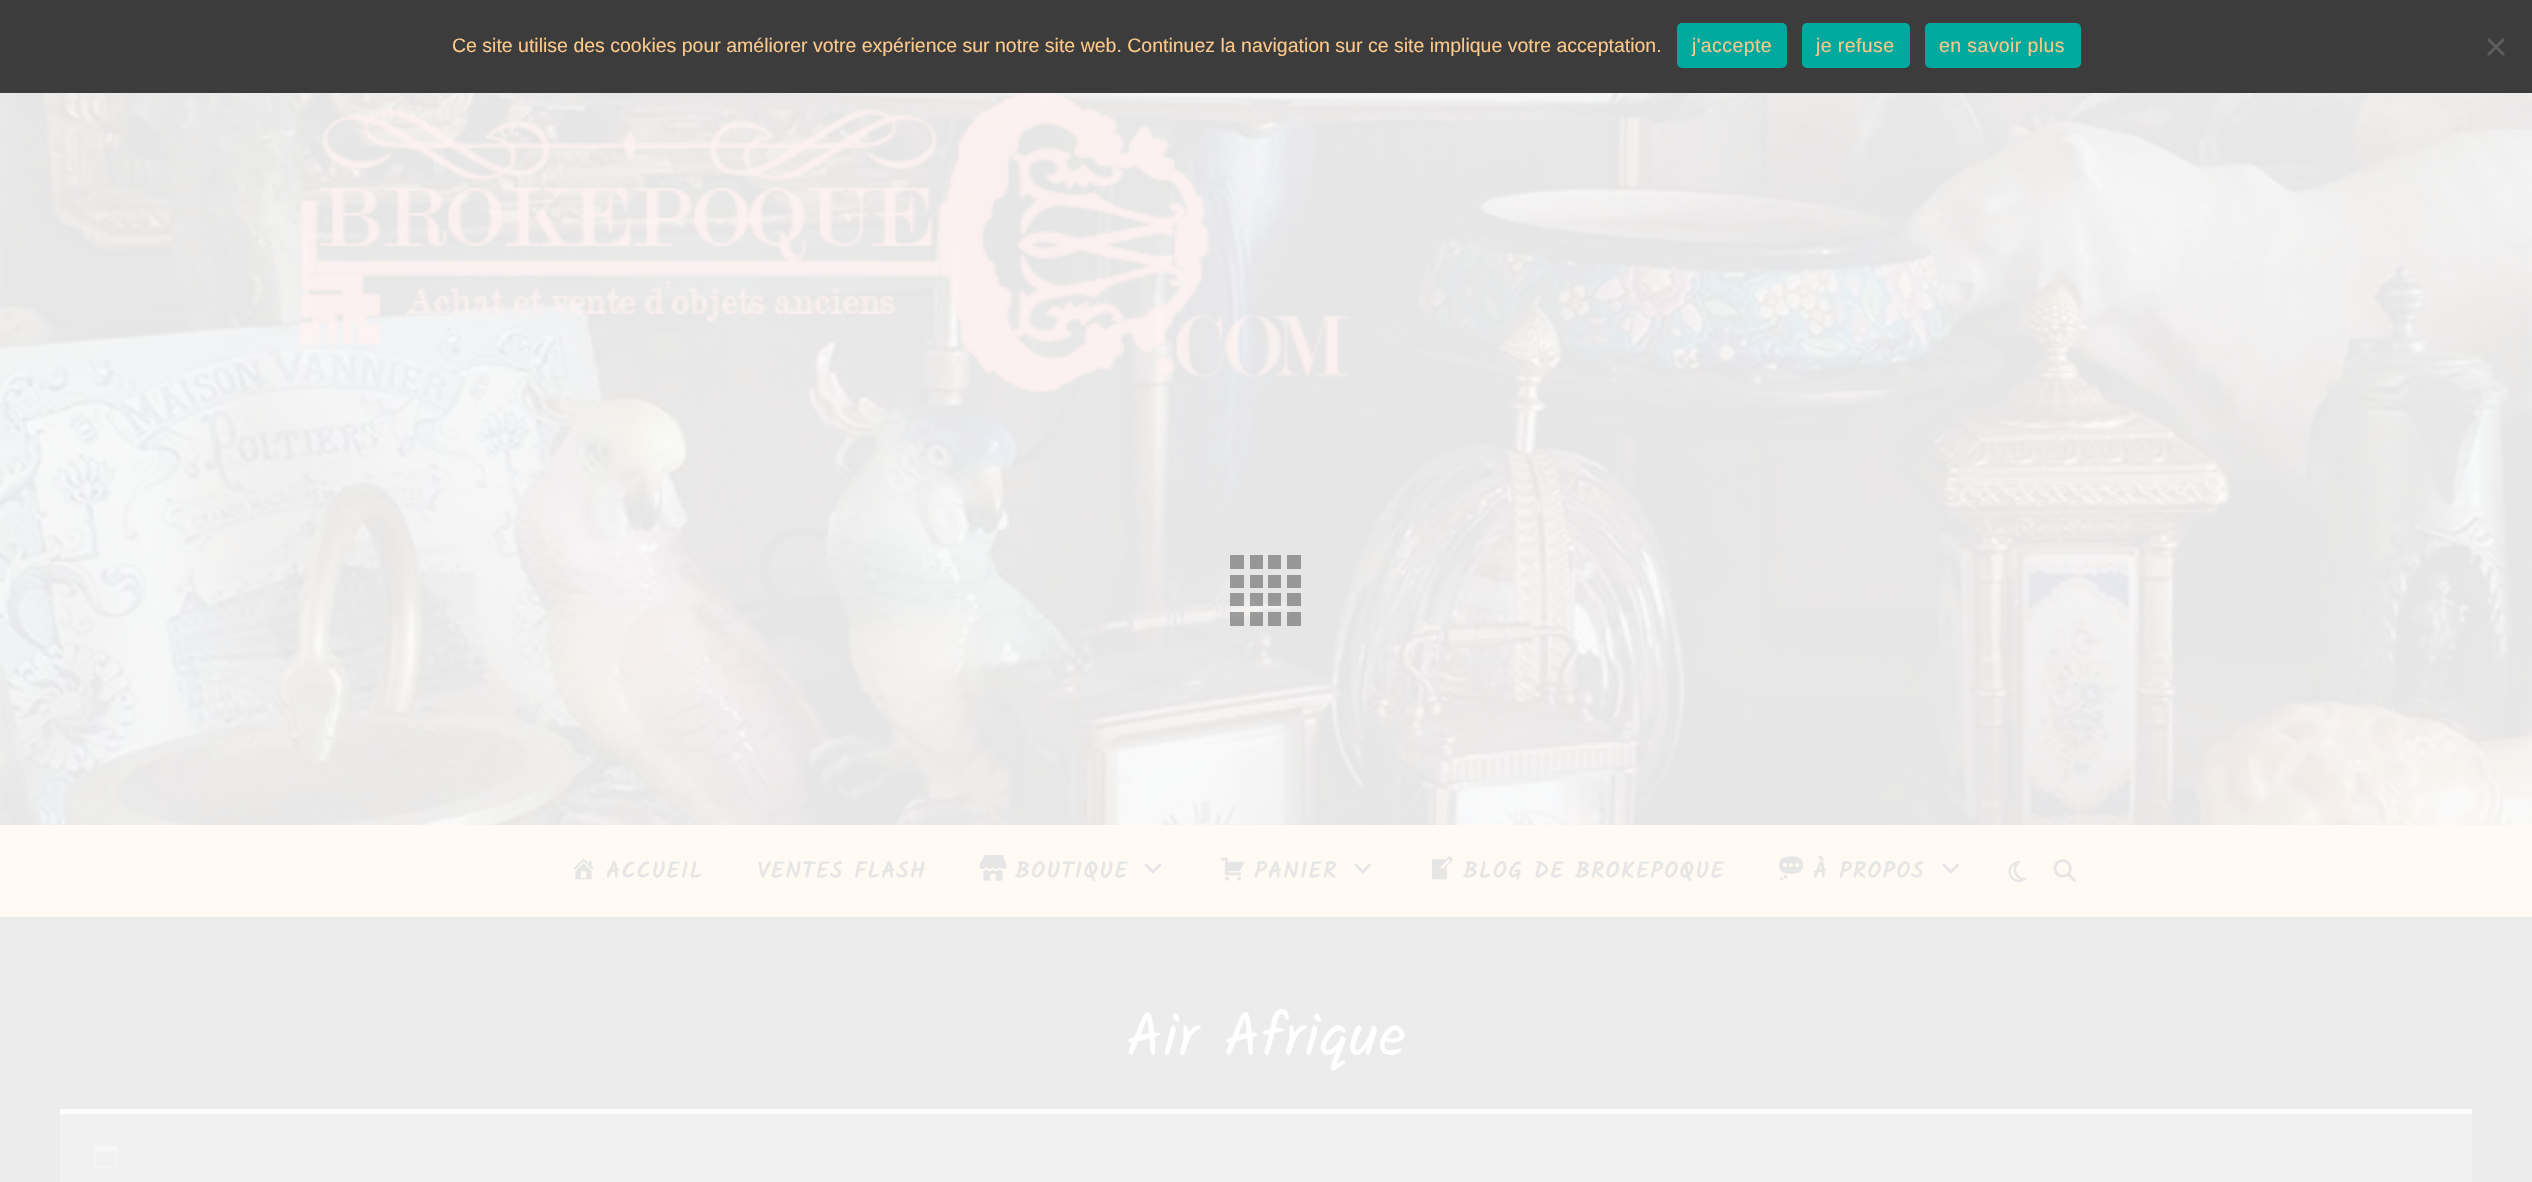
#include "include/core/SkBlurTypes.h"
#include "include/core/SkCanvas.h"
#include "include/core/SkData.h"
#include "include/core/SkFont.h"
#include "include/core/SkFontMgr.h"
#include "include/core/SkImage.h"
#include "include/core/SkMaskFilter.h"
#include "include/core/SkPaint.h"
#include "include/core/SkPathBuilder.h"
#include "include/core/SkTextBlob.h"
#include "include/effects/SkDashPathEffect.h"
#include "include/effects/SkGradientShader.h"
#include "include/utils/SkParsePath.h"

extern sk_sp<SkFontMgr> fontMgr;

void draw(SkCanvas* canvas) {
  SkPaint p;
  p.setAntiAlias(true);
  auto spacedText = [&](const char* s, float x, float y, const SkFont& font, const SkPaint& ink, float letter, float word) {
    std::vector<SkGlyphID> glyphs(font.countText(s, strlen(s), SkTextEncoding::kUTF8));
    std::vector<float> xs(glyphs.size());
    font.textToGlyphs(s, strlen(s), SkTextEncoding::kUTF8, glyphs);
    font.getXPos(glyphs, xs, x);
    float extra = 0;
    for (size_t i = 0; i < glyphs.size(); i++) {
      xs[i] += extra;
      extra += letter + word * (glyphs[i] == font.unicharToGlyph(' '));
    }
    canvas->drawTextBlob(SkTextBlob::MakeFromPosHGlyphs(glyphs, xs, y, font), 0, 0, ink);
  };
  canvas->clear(SkColorSetRGB(236, 236, 236));
  p.setColor(SkColorSetRGB(60, 60, 60));
  canvas->drawRect(SkRect::MakeLTRB(0, 0, 2532, 93), p);
  p.setColor(SkColorSetRGB(0, 169, 157));
  canvas->drawRoundRect(SkRect::MakeLTRB(1677, 23, 1787, 68), 5, 5, p);
  canvas->drawRoundRect(SkRect::MakeLTRB(1802, 23, 1910, 68), 5, 5, p);
  canvas->drawRoundRect(SkRect::MakeLTRB(1925, 23, 2081, 68), 5, 5, p);
  p.setColor(SkColorSetRGB(94, 94, 94));
  canvas->drawPath(SkPathBuilder().moveTo(2503, 38).lineTo(2505, 40).lineTo(2489, 56).lineTo(2487, 54).close().detach(), p);
  canvas->drawPath(SkPathBuilder().moveTo(2487, 40).lineTo(2489, 38).lineTo(2505, 54).lineTo(2503, 56).close().detach(), p);
  canvas->drawImageRect(SkImages::DeferredFromEncodedData(SkData::MakeFromFileName("images/1.png")), SkRect::MakeLTRB(0, 93, 2532, 825), SkSamplingOptions());
  p.setColor(SkColorSetRGB(151, 151, 151));
  canvas->drawRect(SkRect::MakeLTRB(1230, 555, 1244, 569), p);
  canvas->drawRect(SkRect::MakeLTRB(1250, 555, 1263, 569), p);
  canvas->drawRect(SkRect::MakeLTRB(1268, 555, 1281, 569), p);
  canvas->drawRect(SkRect::MakeLTRB(1287, 555, 1301, 569), p);
  p.setColor(SkColorSetARGB(112, 51, 51, 51));
  canvas->drawRect(SkRect::MakeLTRB(1230, 575, 1244, 588), p);
  p.setColor(SkColorSetRGB(151, 151, 151));
  canvas->drawRect(SkRect::MakeLTRB(1250, 575, 1263, 588), p);
  canvas->drawRect(SkRect::MakeLTRB(1268, 575, 1281, 588), p);
  canvas->drawRect(SkRect::MakeLTRB(1287, 575, 1301, 588), p);
  p.setColor(SkColorSetARGB(112, 51, 51, 51));
  canvas->drawRect(SkRect::MakeLTRB(1230, 593, 1244, 606), p);
  canvas->drawRect(SkRect::MakeLTRB(1250, 593, 1263, 606), p);
  canvas->drawRect(SkRect::MakeLTRB(1268, 593, 1281, 606), p);
  canvas->drawRect(SkRect::MakeLTRB(1287, 593, 1301, 606), p);
  canvas->drawRect(SkRect::MakeLTRB(1230, 612, 1244, 626), p);
  canvas->drawRect(SkRect::MakeLTRB(1250, 612, 1263, 626), p);
  canvas->drawRect(SkRect::MakeLTRB(1268, 612, 1281, 626), p);
  canvas->drawRect(SkRect::MakeLTRB(1287, 612, 1301, 626), p);
  canvas->drawImageRect(SkImages::DeferredFromEncodedData(SkData::MakeFromFileName("images/2.png")), SkRect::MakeLTRB(300, 93, 1350, 392), SkSamplingOptions());
  p.setColor(SkColorSetRGB(255, 250, 243));
  canvas->drawRect(SkRect::MakeLTRB(0, 825, 2532, 917), p);
  canvas->drawImageRect(SkImages::DeferredFromEncodedData(SkData::MakeFromFileName("images/3.png")), SkRect::MakeLTRB(573, 858, 594, 880), SkSamplingOptions());
  canvas->drawImageRect(SkImages::DeferredFromEncodedData(SkData::MakeFromFileName("images/4.png")), SkRect::MakeLTRB(979, 855, 1007, 881), SkSamplingOptions());
  canvas->drawImageRect(SkImages::DeferredFromEncodedData(SkData::MakeFromFileName("images/5.png")), SkRect::MakeLTRB(1144, 863, 1162, 874), SkSamplingOptions());
  canvas->drawImageRect(SkImages::DeferredFromEncodedData(SkData::MakeFromFileName("images/6.png")), SkRect::MakeLTRB(1220, 857, 1245, 881), SkSamplingOptions());
  canvas->drawImageRect(SkImages::DeferredFromEncodedData(SkData::MakeFromFileName("images/5.png")), SkRect::MakeLTRB(1354, 863, 1372, 874), SkSamplingOptions());
  canvas->drawImageRect(SkImages::DeferredFromEncodedData(SkData::MakeFromFileName("images/7.png")), SkRect::MakeLTRB(1432, 856, 1454, 880), SkSamplingOptions());
  canvas->drawImageRect(SkImages::DeferredFromEncodedData(SkData::MakeFromFileName("images/8.png")), SkRect::MakeLTRB(1778, 856, 1804, 880), SkSamplingOptions());
  canvas->drawImageRect(SkImages::DeferredFromEncodedData(SkData::MakeFromFileName("images/5.png")), SkRect::MakeLTRB(1942, 863, 1960, 874), SkSamplingOptions());
  canvas->drawImageRect(SkImages::DeferredFromEncodedData(SkData::MakeFromFileName("images/9.png")), SkRect::MakeLTRB(2008, 861, 2027, 882), SkSamplingOptions());
  canvas->drawImageRect(SkImages::DeferredFromEncodedData(SkData::MakeFromFileName("images/10.png")), SkRect::MakeLTRB(2053, 859, 2076, 882), SkSamplingOptions());
  p.setColor(SkColorSetRGB(241, 241, 241));
  canvas->drawRect(SkRect::MakeLTRB(60, 1114, 2472, 1182), p);
  p.setColor(SkColorSetRGB(253, 253, 253));
  canvas->drawRect(SkRect::MakeLTRB(60, 1109, 2472, 1114), p);
  canvas->drawImageRect(SkImages::DeferredFromEncodedData(SkData::MakeFromFileName("images/11.png")), SkRect::MakeLTRB(94, 1146, 117, 1169), SkSamplingOptions());
  SkFont font1(fontMgr->matchFamilyStyle("Liberation Sans", SkFontStyle::Normal()), 19.5f);
  font1.setSubpixel(true);
  p.setColor(SkColorSetRGB(253, 201, 138));
  canvas->drawString("Ce site utilise des cookies pour améliorer votre expérience sur notre site web. Continuez la navigation sur ce site implique votre acceptation.", 452, 52, font1, p);
  spacedText("j'accepte", 1692, 52, font1, p, 0.4f, 0);
  spacedText("je refuse", 1816, 52, font1, p, 0.4f, 0);
  spacedText("en savoir plus", 1939, 52, font1, p, 0.4f, 0);
  SkFont font2(fontMgr->matchFamilyStyle("Kalam", SkFontStyle::Bold()), 22.5f);
  font2.setSubpixel(true);
  p.setColor(SkColorSetRGB(230, 230, 230));
  spacedText("ACCUEIL", 606, 878, font2, p, 1.5f, 0);
  spacedText("VENTES FLASH", 757, 878, font2, p, 1.5f, 0);
  spacedText("BOUTIQUE", 1015, 878, font2, p, 1.5f, 0);
  spacedText("PANIER", 1254, 878, font2, p, 1.5f, 0);
  spacedText("BLOG DE BROKEPOQUE", 1463, 878, font2, p, 1.5f, 0);
  spacedText("À PROPOS", 1813, 878, font2, p, 1.5f, 0);
  SkFont font3(fontMgr->matchFamilyStyle("Kalam", SkFontStyle::Normal()), 60);
  font3.setSubpixel(true);
  p.setColor(SK_ColorWHITE);
  spacedText("Air Afrique", 1126, 1056, font3, p, 0.75f, 0);
}
